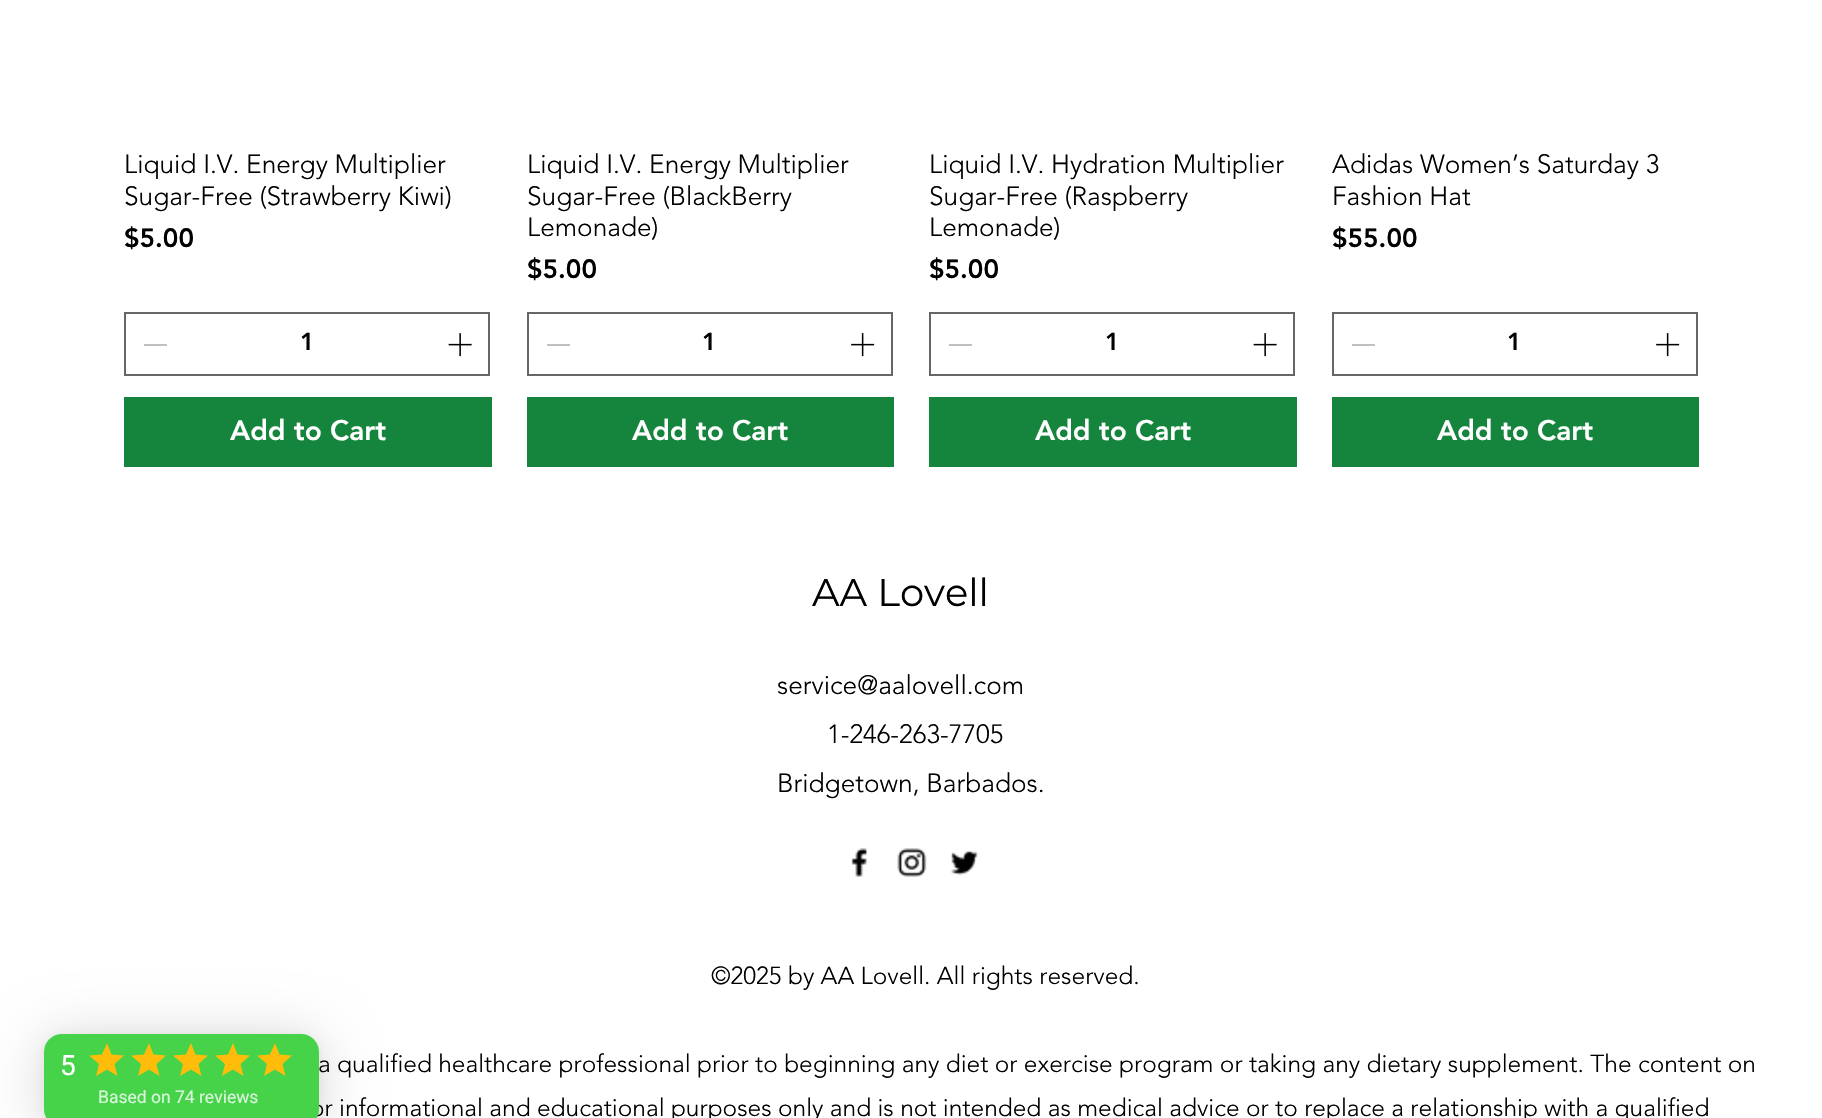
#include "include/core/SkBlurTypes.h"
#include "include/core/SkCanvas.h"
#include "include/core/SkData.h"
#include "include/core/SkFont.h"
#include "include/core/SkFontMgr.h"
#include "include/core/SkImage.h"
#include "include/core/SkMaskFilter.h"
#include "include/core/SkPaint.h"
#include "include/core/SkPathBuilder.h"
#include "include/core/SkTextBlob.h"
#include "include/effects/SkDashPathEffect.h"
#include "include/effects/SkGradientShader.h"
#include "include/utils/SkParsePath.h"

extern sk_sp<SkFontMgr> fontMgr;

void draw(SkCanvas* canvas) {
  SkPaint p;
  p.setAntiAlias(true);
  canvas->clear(SK_ColorWHITE);
  p.setStyle(SkPaint::kStroke_Style);
  p.setStrokeWidth(2);
  p.setColor(SkColorSetRGB(102, 102, 102));
  canvas->drawRect(SkRect::MakeLTRB(125, 313, 489, 375), p);
  p.setStyle(SkPaint::kFill_Style);
  p.setColor(SkColorSetRGB(192, 192, 192));
  canvas->drawRect(SkRect::MakeLTRB(144, 344, 167, 346), p);
  canvas->drawImageRect(SkImages::DeferredFromEncodedData(SkData::MakeFromFileName("images/1.png")), SkRect::MakeLTRB(448, 333, 472, 357), SkSamplingOptions());
  p.setColor(SkColorSetRGB(21, 132, 60));
  canvas->drawRect(SkRect::MakeLTRB(124, 397, 492, 467), p);
  p.setStyle(SkPaint::kStroke_Style);
  p.setColor(SkColorSetRGB(102, 102, 102));
  canvas->drawRect(SkRect::MakeLTRB(528, 313, 892, 375), p);
  p.setStyle(SkPaint::kFill_Style);
  p.setColor(SkColorSetRGB(192, 192, 192));
  canvas->drawRect(SkRect::MakeLTRB(547, 344, 570, 346), p);
  canvas->drawImageRect(SkImages::DeferredFromEncodedData(SkData::MakeFromFileName("images/2.png")), SkRect::MakeLTRB(851, 333, 875, 357), SkSamplingOptions());
  p.setColor(SkColorSetRGB(21, 132, 60));
  canvas->drawRect(SkRect::MakeLTRB(527, 397, 894, 467), p);
  p.setStyle(SkPaint::kStroke_Style);
  p.setColor(SkColorSetRGB(102, 102, 102));
  canvas->drawRect(SkRect::MakeLTRB(930, 313, 1294, 375), p);
  p.setStyle(SkPaint::kFill_Style);
  p.setColor(SkColorSetRGB(192, 192, 192));
  canvas->drawRect(SkRect::MakeLTRB(949, 344, 972, 346), p);
  canvas->drawImageRect(SkImages::DeferredFromEncodedData(SkData::MakeFromFileName("images/1.png")), SkRect::MakeLTRB(1253, 333, 1277, 357), SkSamplingOptions());
  p.setColor(SkColorSetRGB(21, 132, 60));
  canvas->drawRect(SkRect::MakeLTRB(929, 397, 1297, 467), p);
  p.setStyle(SkPaint::kStroke_Style);
  p.setColor(SkColorSetRGB(102, 102, 102));
  canvas->drawRect(SkRect::MakeLTRB(1333, 313, 1697, 375), p);
  p.setStyle(SkPaint::kFill_Style);
  p.setColor(SkColorSetRGB(192, 192, 192));
  canvas->drawRect(SkRect::MakeLTRB(1352, 344, 1375, 346), p);
  canvas->drawImageRect(SkImages::DeferredFromEncodedData(SkData::MakeFromFileName("images/2.png")), SkRect::MakeLTRB(1656, 333, 1680, 357), SkSamplingOptions());
  p.setColor(SkColorSetRGB(21, 132, 60));
  canvas->drawRect(SkRect::MakeLTRB(1332, 397, 1699, 467), p);
  canvas->drawImageRect(SkImages::DeferredFromEncodedData(SkData::MakeFromFileName("images/3.png")), SkRect::MakeLTRB(851, 848, 868, 877), SkSamplingOptions());
  canvas->drawImageRect(SkImages::DeferredFromEncodedData(SkData::MakeFromFileName("images/4.png")), SkRect::MakeLTRB(897, 848, 927, 877), SkSamplingOptions());
  canvas->drawImageRect(SkImages::DeferredFromEncodedData(SkData::MakeFromFileName("images/5.png")), SkRect::MakeLTRB(950, 850, 979, 876), SkSamplingOptions());
  p.setColor(SkColorSetARGB(41, 0, 0, 0));
  p.setMaskFilter(SkMaskFilter::MakeBlur(kNormal_SkBlurStyle, 28));
  canvas->drawRoundRect(SkRect::MakeLTRB(44, 1038, 319, 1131), 18, 18, p);
  p.setMaskFilter(nullptr);
  p.setColor(SkColorSetARGB(15, 0, 0, 0));
  p.setMaskFilter(SkMaskFilter::MakeBlur(kNormal_SkBlurStyle, 5));
  canvas->drawRoundRect(SkRect::MakeLTRB(44, 1036, 319, 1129), 18, 18, p);
  p.setMaskFilter(nullptr);
  SkFont font1(fontMgr->matchFamilyStyle("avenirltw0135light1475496", SkFontStyle(300, SkFontStyle::kNormal_Width, SkFontStyle::kUpright_Slant)), 26.25f);
  font1.setSubpixel(true);
  p.setColor(SK_ColorBLACK);
  canvas->drawString("Liquid I.V. Energy Multiplier", 124, 173, font1, p);
  canvas->drawString("Sugar-Free (Strawberry Kiwi)", 124, 205, font1, p);
  SkFont font2(fontMgr->matchFamilyStyle("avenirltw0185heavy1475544", SkFontStyle(900, SkFontStyle::kNormal_Width, SkFontStyle::kUpright_Slant)), 26.25f);
  font2.setSubpixel(true);
  canvas->drawString("$5.00", 124, 247, font2, p);
  SkFont font3(fontMgr->matchFamilyStyle("avenirltw0185heavy1475544", SkFontStyle(900, SkFontStyle::kNormal_Width, SkFontStyle::kUpright_Slant)), 24.5f);
  font3.setSubpixel(true);
  canvas->drawString("1", 300, 350, font3, p);
  SkFont font4(fontMgr->matchFamilyStyle("avenirltw0185heavy1475544", SkFontStyle(900, SkFontStyle::kNormal_Width, SkFontStyle::kUpright_Slant)), 28);
  font4.setSubpixel(true);
  p.setColor(SK_ColorWHITE);
  canvas->drawString("Add to Cart", 230, 440, font4, p);
  p.setColor(SK_ColorBLACK);
  canvas->drawString("Liquid I.V. Energy Multiplier", 527, 173, font1, p);
  canvas->drawString("Sugar-Free (BlackBerry", 527, 205, font1, p);
  canvas->drawString("Lemonade)", 527, 236, font1, p);
  canvas->drawString("$5.00", 527, 278, font2, p);
  canvas->drawString("1", 702, 350, font3, p);
  p.setColor(SK_ColorWHITE);
  canvas->drawString("Add to Cart", 632, 440, font4, p);
  p.setColor(SK_ColorBLACK);
  canvas->drawString("Liquid I.V. Hydration Multiplier", 929, 173, font1, p);
  canvas->drawString("Sugar-Free (Raspberry", 929, 205, font1, p);
  canvas->drawString("Lemonade)", 929, 236, font1, p);
  canvas->drawString("$5.00", 929, 278, font2, p);
  canvas->drawString("1", 1105, 350, font3, p);
  p.setColor(SK_ColorWHITE);
  canvas->drawString("Add to Cart", 1035, 440, font4, p);
  p.setColor(SK_ColorBLACK);
  canvas->drawString("Adidas Women’s Saturday 3", 1332, 173, font1, p);
  canvas->drawString("Fashion Hat", 1332, 205, font1, p);
  canvas->drawString("$55.00", 1332, 247, font2, p);
  canvas->drawString("1", 1507, 350, font3, p);
  p.setColor(SK_ColorWHITE);
  canvas->drawString("Add to Cart", 1437, 440, font4, p);
  SkFont font5(fontMgr->matchFamilyStyle("Montserrat", SkFontStyle::Normal()), 38.5f);
  font5.setSubpixel(true);
  p.setColor(SK_ColorBLACK);
  canvas->drawString("AA Lovell", 812, 606, font5, p);
  canvas->drawString("service@aalovell.com", 777, 694, font1, p);
  canvas->drawString("1-246-263-7705", 827, 743, font1, p);
  canvas->drawString("Bridgetown, Barbados.", 777, 792, font1, p);
  SkFont font6(fontMgr->matchFamilyStyle("avenirltw0135light1475496", SkFontStyle(300, SkFontStyle::kNormal_Width, SkFontStyle::kUpright_Slant)), 24.5f);
  font6.setSubpixel(true);
  canvas->drawString("©2025 by AA Lovell. All rights reserved.", 711, 984, font6, p);
  canvas->drawString("a qualified healthcare professional prior to beginning any diet or exercise program or taking any dietary supplement. The content on", 318, 1072, font6, p);
  canvas->drawString("or informational and educational purposes only and is not intended as medical advice or to replace a relationship with a qualified", 310, 1116, font6, p);
  p.setColor(SkColorSetRGB(70, 210, 73));
  canvas->drawRoundRect(SkRect::MakeLTRB(44, 1034, 319, 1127), 18, 18, p);
  SkFont font7(fontMgr->matchFamilyStyle("Roboto", SkFontStyle::Normal()), 28);
  font7.setSubpixel(true);
  p.setColor(SK_ColorWHITE);
  canvas->drawString("5", 60, 1075, font7, p);
  p.setColor(SkColorSetRGB(255, 188, 11));
  canvas->drawPath(SkPathBuilder().moveTo(107, 1069.5f).lineTo(117.5f, 1076).lineTo(114.5f, 1064).lineTo(124, 1055.5f).lineTo(111.5f, 1054.5f).lineTo(107, 1043).lineTo(102, 1054.5f).lineTo(89, 1055.5f).lineTo(99, 1064).lineTo(96, 1076).close().detach(), p);
  canvas->drawPath(SkPathBuilder().moveTo(149, 1069.5f).lineTo(159.5f, 1076).lineTo(156.5f, 1064).lineTo(166, 1055.5f).lineTo(153.5f, 1054.5f).lineTo(149, 1043).lineTo(144, 1054.5f).lineTo(131, 1055.5f).lineTo(141, 1064).lineTo(138, 1076).close().detach(), p);
  canvas->drawPath(SkPathBuilder().moveTo(191, 1069.5f).lineTo(201.5f, 1076).lineTo(198.5f, 1064).lineTo(208, 1055.5f).lineTo(195.5f, 1054.5f).lineTo(191, 1043).lineTo(186, 1054.5f).lineTo(173, 1055.5f).lineTo(183, 1064).lineTo(180, 1076).close().detach(), p);
  canvas->drawPath(SkPathBuilder().moveTo(233, 1069.5f).lineTo(243.5f, 1076).lineTo(240.5f, 1064).lineTo(250, 1055.5f).lineTo(237.5f, 1054.5f).lineTo(233, 1043).lineTo(228, 1054.5f).lineTo(215, 1055.5f).lineTo(225, 1064).lineTo(222, 1076).close().detach(), p);
  canvas->drawPath(SkPathBuilder().moveTo(275, 1069.5f).lineTo(285.5f, 1076).lineTo(282.5f, 1064).lineTo(292, 1055.5f).lineTo(279.5f, 1054.5f).lineTo(275, 1043).lineTo(270, 1054.5f).lineTo(257, 1055.5f).lineTo(267, 1064).lineTo(264, 1076).close().detach(), p);
  SkFont font8(fontMgr->matchFamilyStyle("Roboto", SkFontStyle::Normal()), 17.5f);
  font8.setSubpixel(true);
  p.setColor(SkColorSetRGB(218, 246, 219));
  canvas->drawString("Based on 74 reviews", 98, 1103, font8, p);
}
